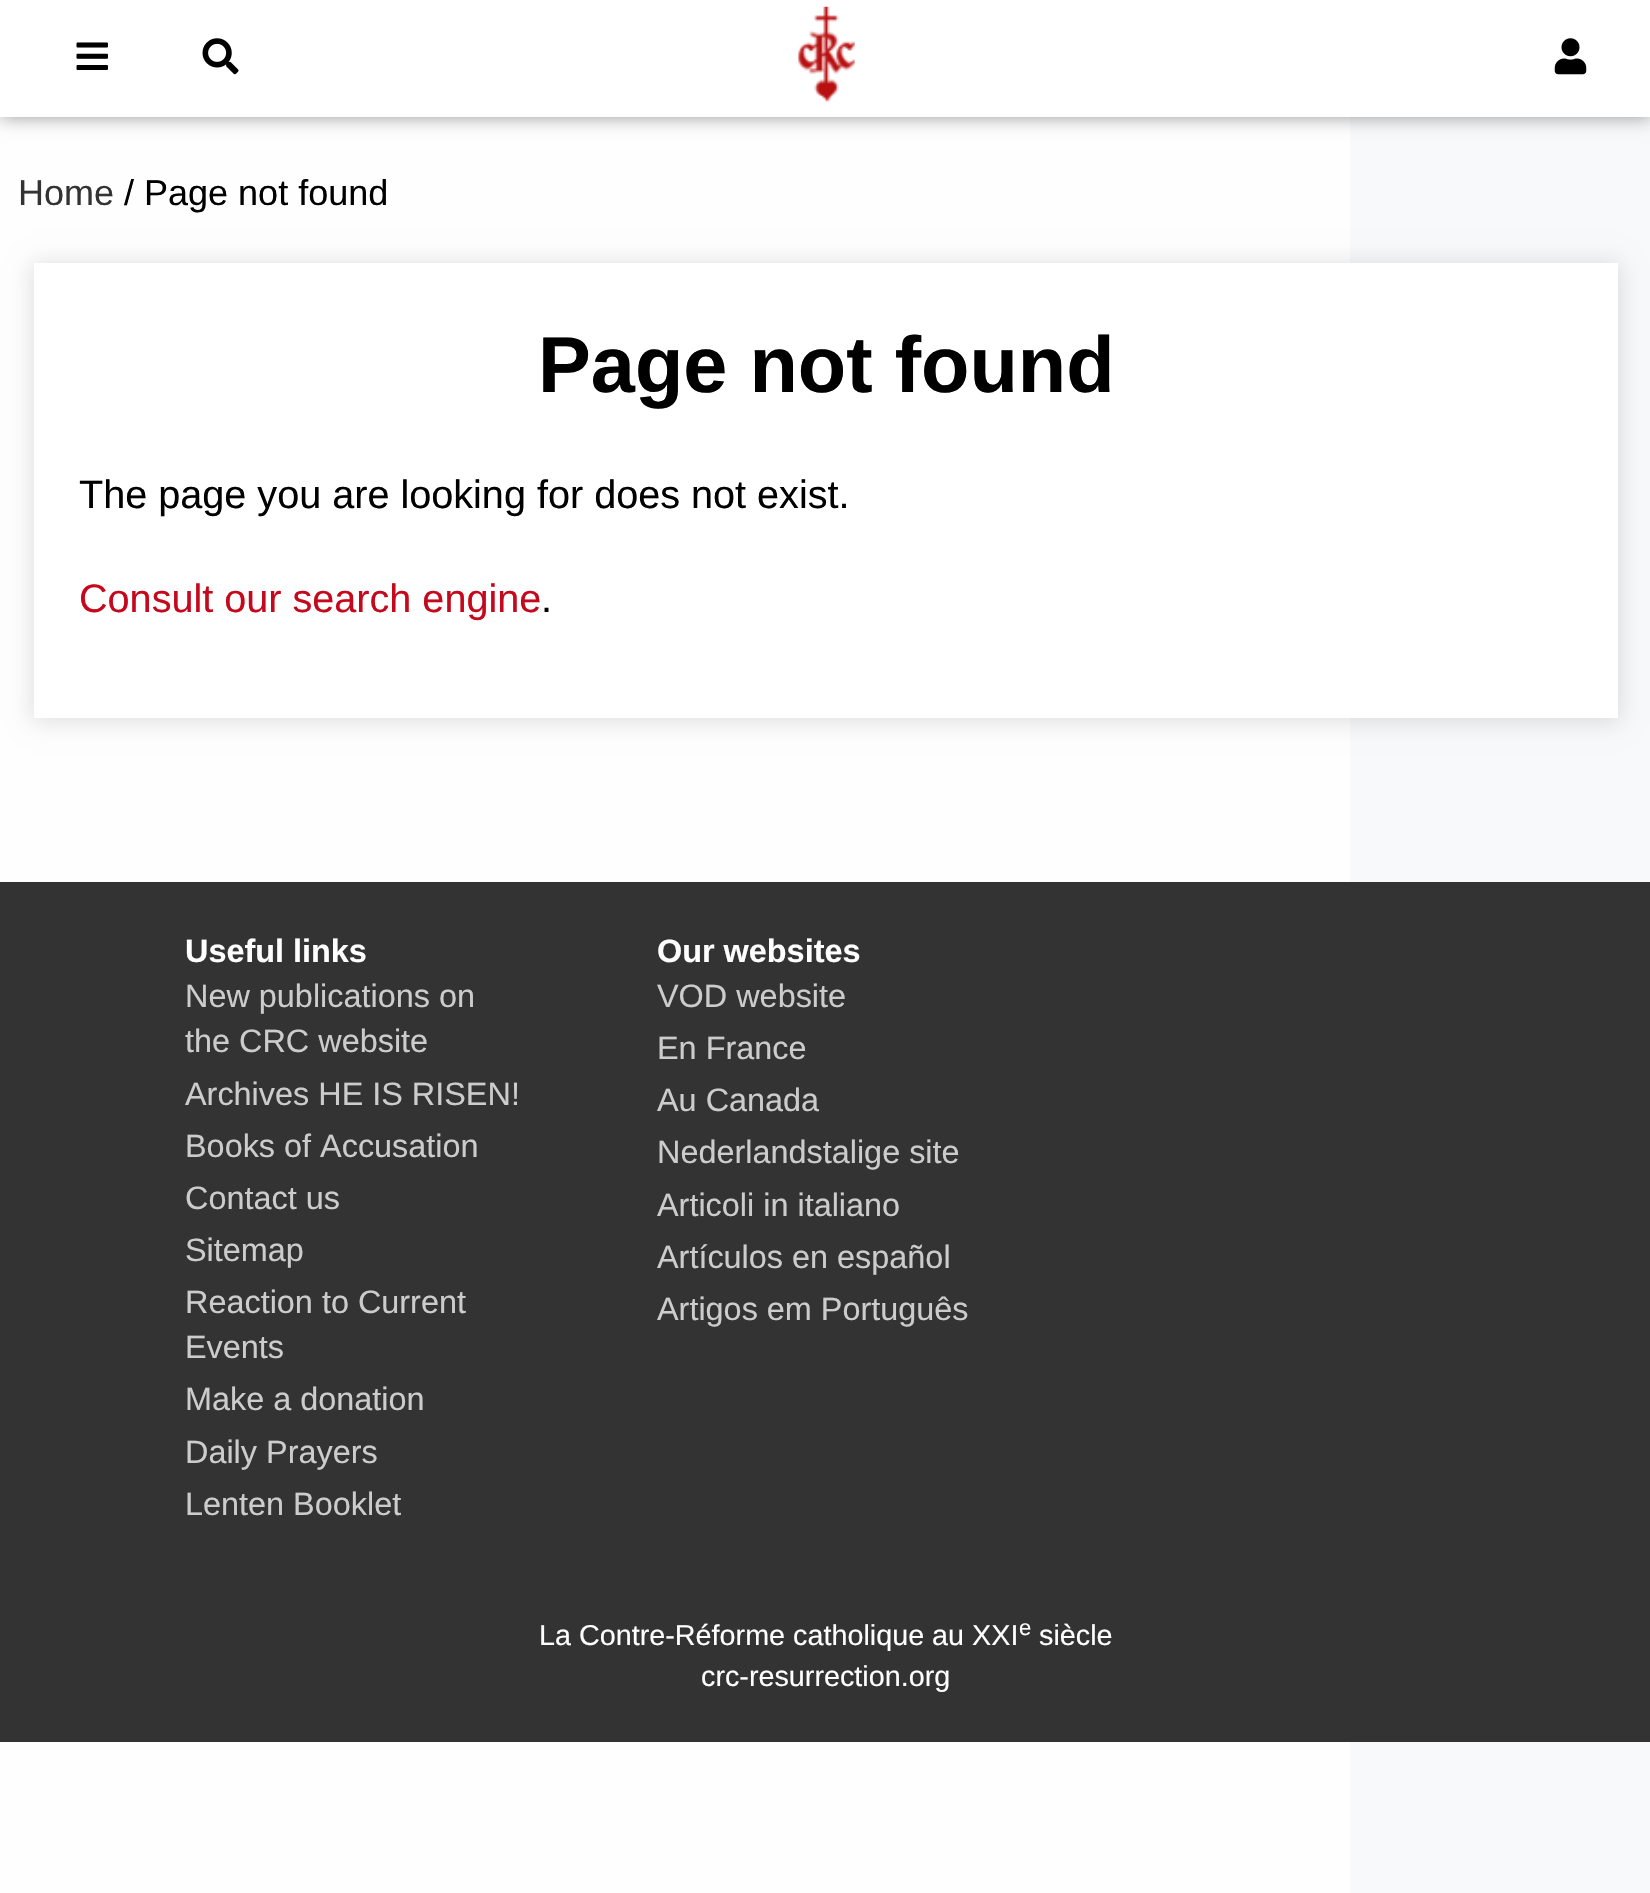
#include "include/core/SkBlurTypes.h"
#include "include/core/SkCanvas.h"
#include "include/core/SkData.h"
#include "include/core/SkFont.h"
#include "include/core/SkFontMgr.h"
#include "include/core/SkImage.h"
#include "include/core/SkMaskFilter.h"
#include "include/core/SkPaint.h"
#include "include/core/SkPathBuilder.h"
#include "include/core/SkTextBlob.h"
#include "include/effects/SkDashPathEffect.h"
#include "include/effects/SkGradientShader.h"
#include "include/utils/SkParsePath.h"

extern sk_sp<SkFontMgr> fontMgr;

void draw(SkCanvas* canvas) {
  SkPaint p;
  p.setAntiAlias(true);
  canvas->clear(SkColorSetRGB(248, 249, 250));
  p.setColor(SkColorSetRGB(254, 254, 254));
  canvas->drawRect(SkRect::MakeLTRB(0, 117, 1350, 1893), p);
  p.setColor(SkColorSetARGB(102, 0, 0, 0));
  p.setMaskFilter(SkMaskFilter::MakeBlur(kNormal_SkBlurStyle, 9));
  canvas->drawRect(SkRect::MakeLTRB(0, 0, 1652, 117), p);
  p.setMaskFilter(nullptr);
  p.setColor(SK_ColorWHITE);
  canvas->drawRect(SkRect::MakeLTRB(0, 0, 1650, 117), p);
  canvas->drawImageRect(SkImages::DeferredFromEncodedData(SkData::MakeFromFileName("images/1.png")), SkRect::MakeLTRB(76, 42, 108, 70), SkSamplingOptions());
  canvas->drawImageRect(SkImages::DeferredFromEncodedData(SkData::MakeFromFileName("images/2.png")), SkRect::MakeLTRB(202, 38, 239, 75), SkSamplingOptions());
  canvas->drawImageRect(SkImages::DeferredFromEncodedData(SkData::MakeFromFileName("images/3.png")), SkRect::MakeLTRB(798, 6, 855, 102), SkSamplingOptions());
  canvas->drawImageRect(SkImages::DeferredFromEncodedData(SkData::MakeFromFileName("images/4.png")), SkRect::MakeLTRB(1554, 38, 1587, 75), SkSamplingOptions());
  p.setColor(SkColorSetARGB(31, 0, 0, 0));
  p.setMaskFilter(SkMaskFilter::MakeBlur(kNormal_SkBlurStyle, 11));
  canvas->drawRect(SkRect::MakeLTRB(32, 263, 1620, 722), p);
  p.setMaskFilter(nullptr);
  p.setColor(SK_ColorWHITE);
  canvas->drawRect(SkRect::MakeLTRB(34, 263, 1618, 718), p);
  p.setColor(SkColorSetRGB(51, 51, 51));
  canvas->drawRect(SkRect::MakeLTRB(0, 882, 1650, 1742), p);
  SkFont font1(fontMgr->matchFamilyStyle("Liberation Sans", SkFontStyle::Normal()), 36);
  font1.setSubpixel(true);
  canvas->drawString("Home", 18, 205, font1, p);
  p.setColor(SK_ColorBLACK);
  canvas->drawString("/ Page not found", 124, 205, font1, p);
  SkFont font2(fontMgr->matchFamilyStyle("Liberation Sans", SkFontStyle::Bold()), 79.25f);
  font2.setSubpixel(true);
  canvas->drawString("Page not found", 538, 392, font2, p);
  SkFont font3(fontMgr->matchFamilyStyle("Liberation Sans", SkFontStyle::Normal()), 39.6f);
  font3.setSubpixel(true);
  canvas->drawString("The page you are looking for does not exist.", 79, 508, font3, p);
  p.setColor(SkColorSetRGB(197, 9, 29));
  canvas->drawString("Consult our search engine", 79, 612, font3, p);
  p.setColor(SK_ColorBLACK);
  canvas->drawString(".", 541, 612, font3, p);
  SkFont font4(fontMgr->matchFamilyStyle("Liberation Sans", SkFontStyle::Bold()), 32.4f);
  font4.setSubpixel(true);
  p.setColor(SK_ColorWHITE);
  canvas->drawString("Useful links", 185, 962, font4, p);
  SkFont font5(fontMgr->matchFamilyStyle("Liberation Sans", SkFontStyle::Normal()), 32.4f);
  font5.setSubpixel(true);
  p.setColor(SkColorSetRGB(204, 204, 204));
  canvas->drawString("New publications on", 185, 1007, font5, p);
  canvas->drawString("the CRC website", 185, 1052, font5, p);
  canvas->drawString("Archives HE IS RISEN!", 185, 1105, font5, p);
  canvas->drawString("Books of Accusation", 185, 1157, font5, p);
  canvas->drawString("Contact us", 185, 1209, font5, p);
  canvas->drawString("Sitemap", 185, 1261, font5, p);
  canvas->drawString("Reaction to Current", 185, 1313, font5, p);
  canvas->drawString("Events", 185, 1358, font5, p);
  canvas->drawString("Make a donation", 185, 1410, font5, p);
  canvas->drawString("Daily Prayers", 185, 1463, font5, p);
  canvas->drawString("Lenten Booklet", 185, 1515, font5, p);
  p.setColor(SK_ColorWHITE);
  canvas->drawString("Our websites", 657, 962, font4, p);
  p.setColor(SkColorSetRGB(204, 204, 204));
  canvas->drawString("VOD website", 657, 1007, font5, p);
  canvas->drawString("En France", 657, 1059, font5, p);
  canvas->drawString("Au Canada", 657, 1111, font5, p);
  canvas->drawString("Nederlandstalige site", 657, 1163, font5, p);
  canvas->drawString("Articoli in italiano", 657, 1216, font5, p);
  canvas->drawString("Artículos en español", 657, 1268, font5, p);
  canvas->drawString("Artigos em Português", 657, 1320, font5, p);
  SkFont font6(fontMgr->matchFamilyStyle("Liberation Sans", SkFontStyle::Normal()), 28.75f);
  font6.setSubpixel(true);
  p.setColor(SK_ColorWHITE);
  canvas->drawString("La Contre-Réforme catholique au XXI", 539, 1645, font6, p);
  SkFont font7(fontMgr->matchFamilyStyle("Liberation Sans", SkFontStyle::Normal()), 22);
  font7.setSubpixel(true);
  canvas->drawString("e", 1019, 1635, font7, p);
  canvas->drawString("siècle", 1039, 1645, font6, p);
  canvas->drawString("crc-resurrection.org", 701, 1686, font6, p);
}
